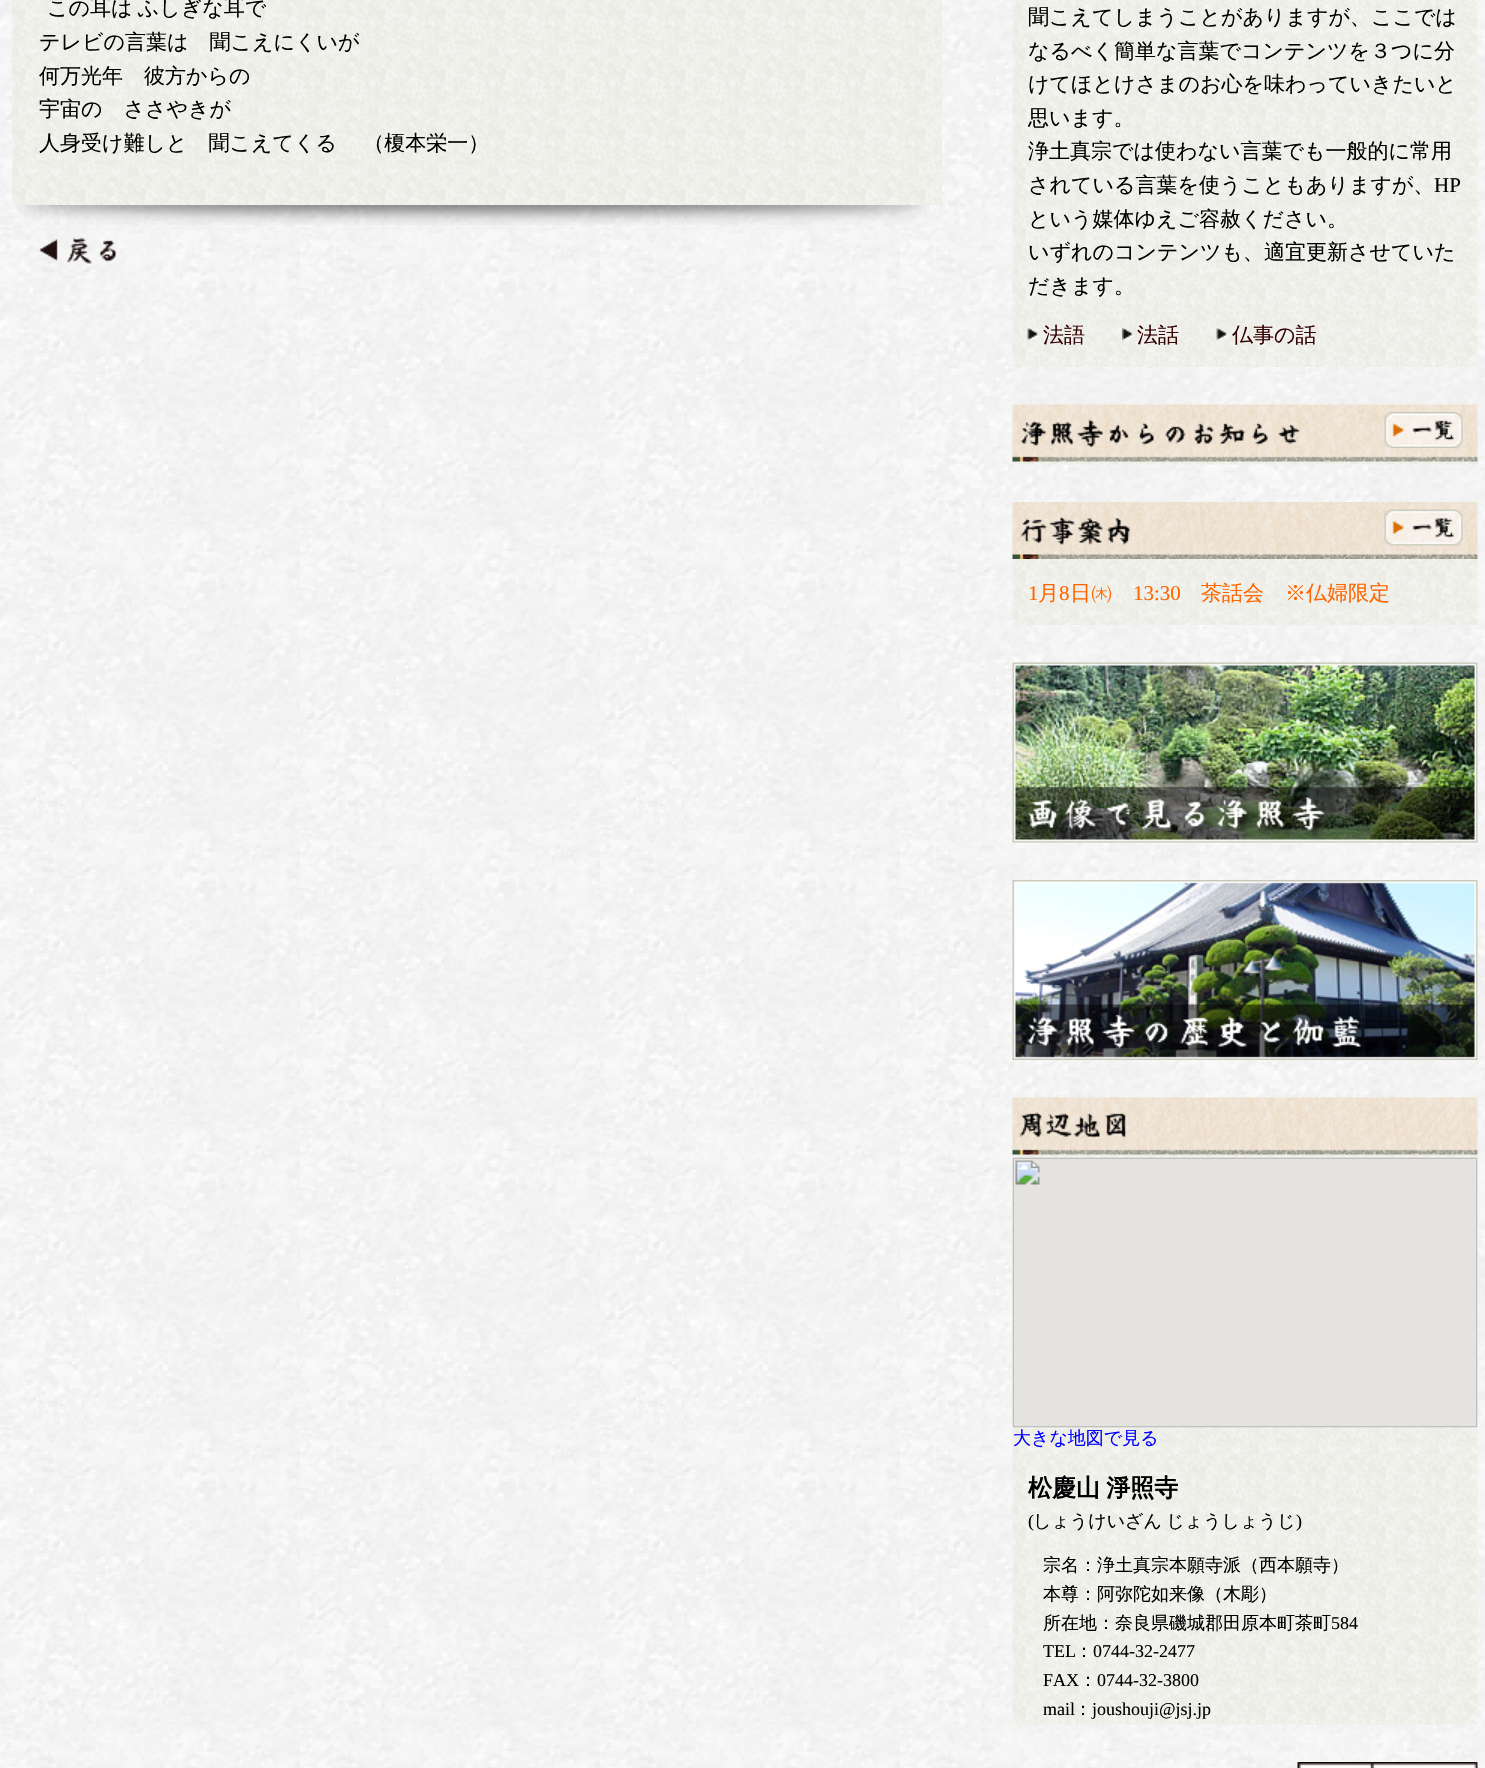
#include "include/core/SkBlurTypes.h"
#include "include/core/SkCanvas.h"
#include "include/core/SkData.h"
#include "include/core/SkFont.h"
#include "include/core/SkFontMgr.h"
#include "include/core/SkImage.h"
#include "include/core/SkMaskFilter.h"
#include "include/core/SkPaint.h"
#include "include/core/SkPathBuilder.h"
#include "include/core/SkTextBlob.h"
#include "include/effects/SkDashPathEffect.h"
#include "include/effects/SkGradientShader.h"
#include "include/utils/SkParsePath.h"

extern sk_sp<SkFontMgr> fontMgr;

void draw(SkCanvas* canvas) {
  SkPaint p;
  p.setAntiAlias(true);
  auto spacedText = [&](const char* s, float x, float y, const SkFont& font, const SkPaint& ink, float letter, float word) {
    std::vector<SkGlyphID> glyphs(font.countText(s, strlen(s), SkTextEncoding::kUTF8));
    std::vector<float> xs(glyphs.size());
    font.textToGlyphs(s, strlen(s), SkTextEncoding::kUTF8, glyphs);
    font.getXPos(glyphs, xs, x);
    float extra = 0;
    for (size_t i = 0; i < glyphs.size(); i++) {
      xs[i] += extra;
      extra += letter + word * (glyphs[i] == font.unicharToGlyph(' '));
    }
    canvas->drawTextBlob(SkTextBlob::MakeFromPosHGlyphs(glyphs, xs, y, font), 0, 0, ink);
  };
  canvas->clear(SK_ColorWHITE);
  canvas->drawImageRect(SkImages::DeferredFromEncodedData(SkData::MakeFromFileName("images/1.png")), SkRect::MakeLTRB(0, 0, 1485, 1768), SkSamplingOptions());
  canvas->drawImageRect(SkImages::DeferredFromEncodedData(SkData::MakeFromFileName("images/2.png")), SkRect::MakeLTRB(12, 0, 942, 205), SkSamplingOptions());
  canvas->drawImageRect(SkImages::DeferredFromEncodedData(SkData::MakeFromFileName("images/3.png")), SkRect::MakeLTRB(16, 205, 929, 225), SkSamplingOptions());
  canvas->drawImageRect(SkImages::DeferredFromEncodedData(SkData::MakeFromFileName("images/4.png")), SkRect::MakeLTRB(39, 237, 117, 264), SkSamplingOptions());
  canvas->drawImageRect(SkImages::DeferredFromEncodedData(SkData::MakeFromFileName("images/5.png")), SkRect::MakeLTRB(1012, 0, 1478, 367), SkSamplingOptions());
  canvas->drawImageRect(SkImages::DeferredFromEncodedData(SkData::MakeFromFileName("images/6.png")), SkRect::MakeLTRB(1027, 328, 1039, 341), SkSamplingOptions());
  canvas->drawImageRect(SkImages::DeferredFromEncodedData(SkData::MakeFromFileName("images/7.png")), SkRect::MakeLTRB(1122, 328, 1134, 341), SkSamplingOptions());
  canvas->drawImageRect(SkImages::DeferredFromEncodedData(SkData::MakeFromFileName("images/8.png")), SkRect::MakeLTRB(1216, 328, 1228, 341), SkSamplingOptions());
  canvas->drawImageRect(SkImages::DeferredFromEncodedData(SkData::MakeFromFileName("images/9.png")), SkRect::MakeLTRB(1012, 404, 1478, 465), SkSamplingOptions());
  canvas->drawImageRect(SkImages::DeferredFromEncodedData(SkData::MakeFromFileName("images/10.png")), SkRect::MakeLTRB(1012, 404, 1478, 462), SkSamplingOptions());
  canvas->drawImageRect(SkImages::DeferredFromEncodedData(SkData::MakeFromFileName("images/11.png")), SkRect::MakeLTRB(1021, 419, 1300, 448), SkSamplingOptions());
  canvas->drawImageRect(SkImages::DeferredFromEncodedData(SkData::MakeFromFileName("images/12.png")), SkRect::MakeLTRB(1384, 412, 1463, 448), SkSamplingOptions());
  canvas->drawImageRect(SkImages::DeferredFromEncodedData(SkData::MakeFromFileName("images/13.png")), SkRect::MakeLTRB(1012, 502, 1478, 625), SkSamplingOptions());
  canvas->drawImageRect(SkImages::DeferredFromEncodedData(SkData::MakeFromFileName("images/14.png")), SkRect::MakeLTRB(1012, 502, 1478, 559), SkSamplingOptions());
  canvas->drawImageRect(SkImages::DeferredFromEncodedData(SkData::MakeFromFileName("images/15.png")), SkRect::MakeLTRB(1020, 517, 1130, 545), SkSamplingOptions());
  canvas->drawImageRect(SkImages::DeferredFromEncodedData(SkData::MakeFromFileName("images/16.png")), SkRect::MakeLTRB(1384, 509, 1463, 546), SkSamplingOptions());
  canvas->drawImageRect(SkImages::DeferredFromEncodedData(SkData::MakeFromFileName("images/17.png")), SkRect::MakeLTRB(1012, 662, 1478, 843), SkSamplingOptions());
  canvas->drawImageRect(SkImages::DeferredFromEncodedData(SkData::MakeFromFileName("images/18.png")), SkRect::MakeLTRB(1012, 662, 1478, 843), SkSamplingOptions());
  canvas->drawImageRect(SkImages::DeferredFromEncodedData(SkData::MakeFromFileName("images/19.png")), SkRect::MakeLTRB(1012, 880, 1478, 1060), SkSamplingOptions());
  canvas->drawImageRect(SkImages::DeferredFromEncodedData(SkData::MakeFromFileName("images/20.png")), SkRect::MakeLTRB(1012, 880, 1478, 1060), SkSamplingOptions());
  canvas->drawImageRect(SkImages::DeferredFromEncodedData(SkData::MakeFromFileName("images/21.png")), SkRect::MakeLTRB(1012, 1097, 1478, 1725), SkSamplingOptions());
  canvas->drawImageRect(SkImages::DeferredFromEncodedData(SkData::MakeFromFileName("images/22.png")), SkRect::MakeLTRB(1012, 1097, 1478, 1155), SkSamplingOptions());
  canvas->drawImageRect(SkImages::DeferredFromEncodedData(SkData::MakeFromFileName("images/23.png")), SkRect::MakeLTRB(1020, 1112, 1127, 1138), SkSamplingOptions());
  canvas->drawImageRect(SkImages::DeferredFromEncodedData(SkData::MakeFromFileName("images/24.png")), SkRect::MakeLTRB(1012, 1157, 1478, 1428), SkSamplingOptions());
  canvas->drawImageRect(SkImages::DeferredFromEncodedData(SkData::MakeFromFileName("images/25.png")), SkRect::MakeLTRB(1297, 1762, 1478, 1768), SkSamplingOptions());
  SkFont font1(fontMgr->matchFamilyStyle("WenQuanYi Zen Hei", SkFontStyle(500, SkFontStyle::kNormal_Width, SkFontStyle::kUpright_Slant)), 21);
  font1.setSubpixel(true);
  p.setColor(SK_ColorBLACK);
  spacedText("この耳は ふしぎな耳で", 47, 15, font1, p, 0, -1);
  canvas->drawString("テレビの言葉は　聞こえにくいが", 39, 49, font1, p);
  canvas->drawString("何万光年　彼方からの", 39, 83, font1, p);
  canvas->drawString("宇宙の　ささやきが", 39, 116, font1, p);
  spacedText("人身受け難しと　聞こえてくる 　（榎本栄一）", 39, 150, font1, p, 0, -1);
  canvas->drawString("聞こえてしまうことがありますが、ここでは", 1028, 24, font1, p);
  canvas->drawString("なるべく簡単な言葉でコンテンツを３つに分", 1028, 58, font1, p);
  canvas->drawString("けてほとけさまのお心を味わっていきたいと", 1028, 91, font1, p);
  canvas->drawString("思います。", 1028, 125, font1, p);
  canvas->drawString("浄土真宗では使わない言葉でも一般的に常用", 1028, 158, font1, p);
  canvas->drawString("されている言葉を使うこともありますが、", 1028, 192, font1, p);
  SkFont font2(fontMgr->matchFamilyStyle("Liberation Serif", SkFontStyle::Normal()), 21);
  font2.setSubpixel(true);
  canvas->drawString("HP", 1434, 192, font2, p);
  canvas->drawString("という媒体ゆえご容赦ください。", 1028, 226, font1, p);
  canvas->drawString("いずれのコンテンツも、適宜更新させていた", 1028, 259, font1, p);
  canvas->drawString("だきます。", 1028, 293, font1, p);
  p.setColor(SkColorSetRGB(51, 0, 0));
  canvas->drawString("法語", 1043, 342, font1, p);
  canvas->drawString("法話", 1137, 342, font1, p);
  canvas->drawString("仏事の話", 1232, 342, font1, p);
  p.setColor(SkColorSetRGB(255, 102, 0));
  canvas->drawString("1", 1028, 600, font2, p);
  canvas->drawString("月", 1038, 600, font1, p);
  canvas->drawString("8", 1059, 600, font2, p);
  canvas->drawString("日㈭", 1070, 600, font1, p);
  canvas->drawString("13:30", 1133, 600, font2, p);
  canvas->drawString("茶話会　※仏婦限定", 1201, 600, font1, p);
  SkFont font3(fontMgr->matchFamilyStyle("WenQuanYi Zen Hei", SkFontStyle(500, SkFontStyle::kNormal_Width, SkFontStyle::kUpright_Slant)), 18);
  font3.setSubpixel(true);
  p.setColor(SkColorSetRGB(0, 0, 255));
  canvas->drawString("大きな地図で見る", 1013, 1444, font3, p);
  SkFont font4(fontMgr->matchFamilyStyle("WenQuanYi Zen Hei", SkFontStyle::Bold()), 24);
  font4.setSubpixel(true);
  p.setColor(SK_ColorBLACK);
  spacedText("松慶山 淨照寺", 1028, 1496, font4, p, 0, -1);
  SkFont font5(fontMgr->matchFamilyStyle("Liberation Serif", SkFontStyle::Normal()), 18);
  font5.setSubpixel(true);
  canvas->drawString("(", 1028, 1527, font5, p);
  spacedText("しょうけいざん じょうしょうじ", 1033, 1527, font3, p, 0, -1);
  canvas->drawString(")", 1296, 1527, font5, p);
  canvas->drawString("宗名：浄土真宗本願寺派（西本願寺）", 1043, 1571, font3, p);
  canvas->drawString("本尊：阿弥陀如来像（木彫）", 1043, 1600, font3, p);
  canvas->drawString("所在地：奈良県磯城郡田原本町茶町", 1043, 1629, font3, p);
  canvas->drawString("584", 1331, 1629, font5, p);
  canvas->drawString("TEL", 1043, 1657, font5, p);
  canvas->drawString("：", 1075, 1657, font3, p);
  canvas->drawString("0744-32-2477", 1093, 1657, font5, p);
  canvas->drawString("FAX", 1043, 1686, font5, p);
  canvas->drawString("：", 1079, 1686, font3, p);
  canvas->drawString("0744-32-3800", 1097, 1686, font5, p);
  canvas->drawString("mail", 1043, 1715, font5, p);
  canvas->drawString("：", 1074, 1715, font3, p);
  canvas->drawString("joushouji@jsj.jp", 1092, 1715, font5, p);
}
